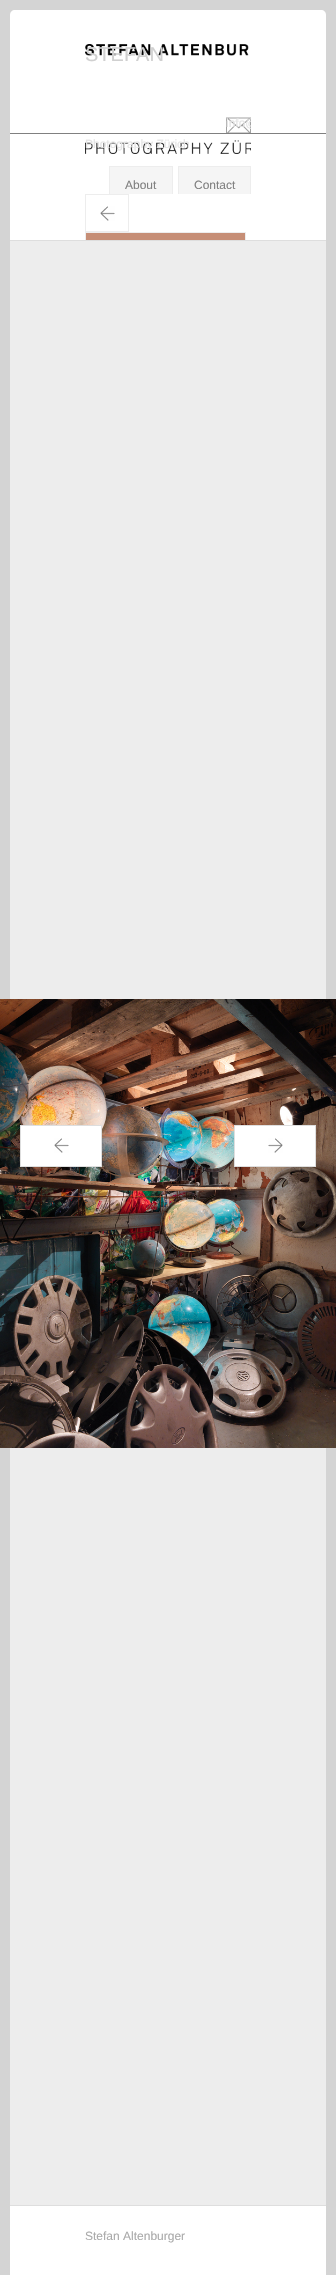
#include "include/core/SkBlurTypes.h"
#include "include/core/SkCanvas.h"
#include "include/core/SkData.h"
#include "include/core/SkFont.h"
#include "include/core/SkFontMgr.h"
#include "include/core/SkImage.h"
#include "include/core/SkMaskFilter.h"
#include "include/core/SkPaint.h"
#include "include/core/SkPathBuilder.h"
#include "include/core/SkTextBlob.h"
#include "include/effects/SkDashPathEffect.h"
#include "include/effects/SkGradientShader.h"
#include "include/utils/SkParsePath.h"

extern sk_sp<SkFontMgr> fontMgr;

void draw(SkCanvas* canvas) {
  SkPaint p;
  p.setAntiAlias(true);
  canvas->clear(SkColorSetRGB(212, 212, 212));
  p.setColor(SK_ColorWHITE);
  canvas->drawPath(SkPathBuilder().moveTo(15, 10).lineTo(321, 10).cubicTo(324, 10, 326, 12, 326, 15).lineTo(326, 241).lineTo(10, 241).lineTo(10, 15).cubicTo(10, 12, 12, 10, 15, 10).close().detach(), p);
  p.setColor(SkColorSetRGB(222, 222, 222));
  canvas->drawRect(SkRect::MakeLTRB(10, 240, 326, 241), p);
  canvas->drawImageRect(SkImages::DeferredFromEncodedData(SkData::MakeFromFileName("images/1.png")), SkRect::MakeLTRB(85, 44, 249, 56), SkSamplingOptions());
  canvas->drawImageRect(SkImages::DeferredFromEncodedData(SkData::MakeFromFileName("images/2.png")), SkRect::MakeLTRB(226, 117, 251, 133), SkSamplingOptions());
  p.setColor(SkColorSetRGB(128, 128, 128));
  canvas->drawRect(SkRect::MakeLTRB(10, 133, 326, 134), p);
  canvas->drawImageRect(SkImages::DeferredFromEncodedData(SkData::MakeFromFileName("images/3.png")), SkRect::MakeLTRB(85, 140, 251, 154), SkSamplingOptions());
  p.setColor(SkColorSetRGB(245, 245, 245));
  canvas->drawRect(SkRect::MakeLTRB(110, 167, 172, 194), p);
  canvas->save();
  canvas->clipRect(SkRect::MakeLTRB(85, 134, 251, 194));
  p.setStyle(SkPaint::kStroke_Style);
  p.setStrokeWidth(1);
  p.setColor(SkColorSetRGB(237, 237, 237));
  canvas->drawRect(SkRect::MakeLTRB(109.5f, 166.5f, 172.5f, 203.5f), p);
  canvas->restore();
  p.setStyle(SkPaint::kFill_Style);
  p.setColor(SkColorSetRGB(245, 245, 245));
  canvas->drawRect(SkRect::MakeLTRB(179, 167, 250, 194), p);
  canvas->save();
  canvas->clipRect(SkRect::MakeLTRB(85, 134, 251, 194));
  p.setStyle(SkPaint::kStroke_Style);
  p.setColor(SkColorSetRGB(237, 237, 237));
  canvas->drawRect(SkRect::MakeLTRB(178.5f, 166.5f, 250.5f, 203.5f), p);
  canvas->restore();
  canvas->drawImageRect(SkImages::DeferredFromEncodedData(SkData::MakeFromFileName("images/4.png")), SkRect::MakeLTRB(100, 206, 115, 221), SkSamplingOptions());
  canvas->drawRect(SkRect::MakeLTRB(85.5f, 194.5f, 128.5f, 231.5f), p);
  p.setStyle(SkPaint::kFill_Style);
  p.setColor(SkColorSetRGB(198, 142, 118));
  canvas->drawRect(SkRect::MakeLTRB(85, 233, 246, 240), p);
  p.setColor(SkColorSetRGB(237, 237, 237));
  canvas->drawRect(SkRect::MakeLTRB(10, 241, 326, 2205), p);
  canvas->save();
  canvas->clipRect(SkRect::MakeLTRB(85, 194, 251, 240));
  p.setStyle(SkPaint::kStroke_Style);
  canvas->drawRect(SkRect::MakeLTRB(85.5f, 232.5f, 245.5f, 305.5f), p);
  canvas->restore();
  canvas->drawImageRect(SkImages::DeferredFromEncodedData(SkData::MakeFromFileName("images/9.png")), SkRect::MakeLTRB(273, 1273, 336, 1448), SkSamplingOptions());
  canvas->drawImageRect(SkImages::DeferredFromEncodedData(SkData::MakeFromFileName("images/7.png")), SkRect::MakeLTRB(273, 999, 336, 1274), SkSamplingOptions());
  canvas->drawImageRect(SkImages::DeferredFromEncodedData(SkData::MakeFromFileName("images/8.png")), SkRect::MakeLTRB(0, 1272, 275, 1448), SkSamplingOptions());
  canvas->drawImageRect(SkImages::DeferredFromEncodedData(SkData::MakeFromFileName("images/6.png")), SkRect::MakeLTRB(0, 999, 275, 1274), SkSamplingOptions());
  p.setStyle(SkPaint::kFill_Style);
  p.setColor(SK_ColorWHITE);
  canvas->drawRect(SkRect::MakeLTRB(21, 1126, 101, 1166), p);
  canvas->drawImageRect(SkImages::DeferredFromEncodedData(SkData::MakeFromFileName("images/4.png")), SkRect::MakeLTRB(54, 1138, 69, 1153), SkSamplingOptions());
  p.setStyle(SkPaint::kStroke_Style);
  p.setColor(SkColorSetRGB(222, 222, 222));
  canvas->drawRect(SkRect::MakeLTRB(20.5f, 1125.5f, 101.5f, 1166.5f), p);
  p.setStyle(SkPaint::kFill_Style);
  p.setColor(SK_ColorWHITE);
  canvas->drawRect(SkRect::MakeLTRB(235, 1126, 315, 1166), p);
  canvas->drawImageRect(SkImages::DeferredFromEncodedData(SkData::MakeFromFileName("images/5.png")), SkRect::MakeLTRB(268, 1138, 283, 1153), SkSamplingOptions());
  p.setStyle(SkPaint::kStroke_Style);
  p.setColor(SkColorSetRGB(222, 222, 222));
  canvas->drawRect(SkRect::MakeLTRB(234.5f, 1125.5f, 315.5f, 1166.5f), p);
  p.setStyle(SkPaint::kFill_Style);
  p.setColor(SK_ColorWHITE);
  canvas->drawRect(SkRect::MakeLTRB(10, 2206, 326, 2275), p);
  p.setColor(SkColorSetRGB(222, 222, 222));
  canvas->drawRect(SkRect::MakeLTRB(10, 2205, 326, 2206), p);
  SkFont font1(fontMgr->matchFamilyStyle("Liberation Sans", SkFontStyle::Normal()), 20);
  font1.setSubpixel(true);
  p.setColor(SkColorSetRGB(208, 208, 208));
  canvas->drawString("STEFAN", 85, 61, font1, p);
  canvas->save();
  canvas->clipRect(SkRect::MakeLTRB(226, 117, 251, 133));
  SkFont font2(fontMgr->matchFamilyStyle("Liberation Sans", SkFontStyle::Normal()), 12);
  font2.setSubpixel(true);
  p.setColor(SkColorSetRGB(228, 228, 228));
  canvas->drawString("info@", 226, 127, font2, p);
  canvas->restore();
  canvas->drawString("Photography Zürich", 85, 148, font2, p);
  p.setColor(SkColorSetRGB(128, 128, 128));
  canvas->drawString("About", 125, 189, font2, p);
  canvas->drawString("Contact", 194, 189, font2, p);
  p.setColor(SkColorSetRGB(170, 170, 170));
  canvas->drawString("Stefan Altenburger", 85, 2240, font2, p);
}
